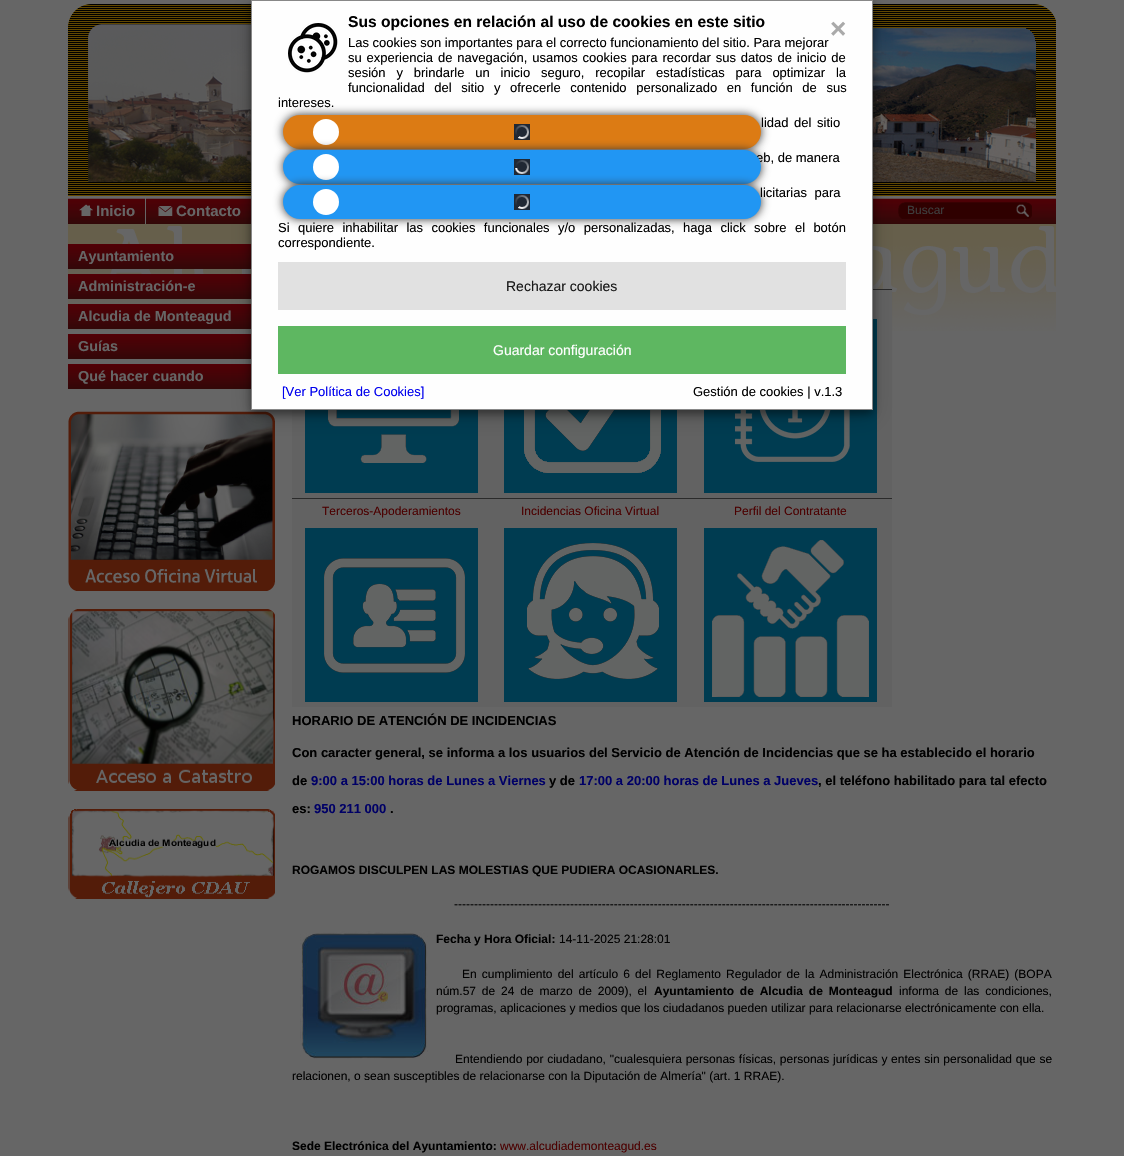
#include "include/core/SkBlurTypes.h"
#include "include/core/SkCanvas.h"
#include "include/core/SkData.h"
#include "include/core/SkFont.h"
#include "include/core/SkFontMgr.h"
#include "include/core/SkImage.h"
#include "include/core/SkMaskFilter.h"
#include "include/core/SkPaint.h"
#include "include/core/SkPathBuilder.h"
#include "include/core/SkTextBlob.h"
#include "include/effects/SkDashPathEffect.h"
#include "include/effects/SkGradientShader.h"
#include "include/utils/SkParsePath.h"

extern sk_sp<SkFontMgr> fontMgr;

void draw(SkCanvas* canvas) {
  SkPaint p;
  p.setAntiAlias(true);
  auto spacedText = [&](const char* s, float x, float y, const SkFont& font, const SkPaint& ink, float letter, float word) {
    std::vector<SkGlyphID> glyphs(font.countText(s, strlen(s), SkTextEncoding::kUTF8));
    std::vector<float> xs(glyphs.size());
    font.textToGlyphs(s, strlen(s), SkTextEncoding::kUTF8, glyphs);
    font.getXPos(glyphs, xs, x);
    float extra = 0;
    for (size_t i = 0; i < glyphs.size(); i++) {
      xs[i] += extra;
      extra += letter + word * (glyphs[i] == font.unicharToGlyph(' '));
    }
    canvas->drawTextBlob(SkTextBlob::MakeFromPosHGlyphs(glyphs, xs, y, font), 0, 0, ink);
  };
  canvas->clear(SkColorSetRGB(102, 102, 102));
  canvas->drawImageRect(SkImages::DeferredFromEncodedData(SkData::MakeFromFileName("images/4.png")), SkRect::MakeLTRB(68, 4, 1056, 196), SkSamplingOptions());
  canvas->drawImageRect(SkImages::DeferredFromEncodedData(SkData::MakeFromFileName("images/5.png")), SkRect::MakeLTRB(88, 24, 251, 182), SkSamplingOptions());
  canvas->drawImageRect(SkImages::DeferredFromEncodedData(SkData::MakeFromFileName("images/6.png")), SkRect::MakeLTRB(873, 27, 1036, 182), SkSamplingOptions());
  canvas->drawImageRect(SkImages::DeferredFromEncodedData(SkData::MakeFromFileName("images/7.png")), SkRect::MakeLTRB(68, 198, 1056, 224), SkSamplingOptions());
  canvas->drawImageRect(SkImages::DeferredFromEncodedData(SkData::MakeFromFileName("images/10.png")), SkRect::MakeLTRB(898, 202, 1032, 219), SkSamplingOptions());
  canvas->drawImageRect(SkImages::DeferredFromEncodedData(SkData::MakeFromFileName("images/12.png")), SkRect::MakeLTRB(68, 224, 1056, 331), SkSamplingOptions());
  canvas->drawImageRect(SkImages::DeferredFromEncodedData(SkData::MakeFromFileName("images/13.png")), SkRect::MakeLTRB(68, 244, 251, 269), SkSamplingOptions());
  canvas->drawImageRect(SkImages::DeferredFromEncodedData(SkData::MakeFromFileName("images/13.png")), SkRect::MakeLTRB(68, 274, 251, 299), SkSamplingOptions());
  canvas->drawImageRect(SkImages::DeferredFromEncodedData(SkData::MakeFromFileName("images/13.png")), SkRect::MakeLTRB(68, 304, 251, 329), SkSamplingOptions());
  canvas->drawImageRect(SkImages::DeferredFromEncodedData(SkData::MakeFromFileName("images/13.png")), SkRect::MakeLTRB(68, 334, 251, 359), SkSamplingOptions());
  canvas->drawImageRect(SkImages::DeferredFromEncodedData(SkData::MakeFromFileName("images/13.png")), SkRect::MakeLTRB(68, 364, 251, 389), SkSamplingOptions());
  canvas->drawImageRect(SkImages::DeferredFromEncodedData(SkData::MakeFromFileName("images/14.png")), SkRect::MakeLTRB(68, 411, 275, 591), SkSamplingOptions());
  p.setColor(SkColorSetRGB(42, 42, 42));
  canvas->drawRect(SkRect::MakeLTRB(873, 289, 892, 290), p);
  p.setColor(SkColorSetRGB(98, 98, 98));
  canvas->drawRect(SkRect::MakeLTRB(873, 290, 892, 314), p);
  canvas->drawRect(SkRect::MakeLTRB(292, 410, 690, 498), p);
  canvas->drawImageRect(SkImages::DeferredFromEncodedData(SkData::MakeFromFileName("images/17.png")), SkRect::MakeLTRB(305, 410, 478, 493), SkSamplingOptions());
  canvas->drawRect(SkRect::MakeLTRB(690, 314, 892, 498), p);
  canvas->drawImageRect(SkImages::DeferredFromEncodedData(SkData::MakeFromFileName("images/18.png")), SkRect::MakeLTRB(704, 319, 877, 493), SkSamplingOptions());
  canvas->drawImageRect(SkImages::DeferredFromEncodedData(SkData::MakeFromFileName("images/19.png")), SkRect::MakeLTRB(504, 410, 677, 493), SkSamplingOptions());
  p.setColor(SkColorSetARGB(48, 0, 0, 0));
  p.setMaskFilter(SkMaskFilter::MakeBlur(kNormal_SkBlurStyle, 10));
  canvas->drawRect(SkRect::MakeLTRB(251, 6, 873, 416), p);
  p.setMaskFilter(nullptr);
  p.setColor(SkColorSetARGB(102, 0, 0, 0));
  p.setMaskFilter(SkMaskFilter::MakeBlur(kNormal_SkBlurStyle, 4));
  canvas->drawRect(SkRect::MakeLTRB(251, 4, 873, 414), p);
  p.setMaskFilter(nullptr);
  p.setColor(SkColorSetRGB(254, 254, 254));
  canvas->drawRect(SkRect::MakeLTRB(251.5f, 0.5f, 872.5f, 409.5f), p);
  p.setStyle(SkPaint::kStroke_Style);
  p.setStrokeWidth(1);
  p.setColor(SkColorSetRGB(136, 136, 136));
  canvas->drawRect(SkRect::MakeLTRB(251.5f, 0.5f, 872.5f, 409.5f), p);
  canvas->drawImageRect(SkImages::DeferredFromEncodedData(SkData::MakeFromFileName("images/1.png")), SkRect::MakeLTRB(288, 23, 338, 73), SkSamplingOptions());
  p.setStyle(SkPaint::kFill_Style);
  p.setColor(SkColorSetRGB(51, 51, 51));
  p.setMaskFilter(SkMaskFilter::MakeBlur(kNormal_SkBlurStyle, 5));
  canvas->drawRoundRect(SkRect::MakeLTRB(283, 115, 761, 149), 17, 17, p);
  p.setMaskFilter(nullptr);
  p.setColor(SkColorSetRGB(220, 123, 20));
  canvas->drawRoundRect(SkRect::MakeLTRB(283, 115, 761, 149), 17, 17, p);
  canvas->drawImageRect(SkImages::DeferredFromEncodedData(SkData::MakeFromFileName("images/2.png")), SkRect::MakeLTRB(514, 124, 530, 140), SkSamplingOptions());
  p.setColor(SK_ColorWHITE);
  canvas->drawCircle(326, 132, 13, p);
  p.setColor(SkColorSetRGB(51, 51, 51));
  p.setMaskFilter(SkMaskFilter::MakeBlur(kNormal_SkBlurStyle, 5));
  canvas->drawRoundRect(SkRect::MakeLTRB(283, 150, 761, 184), 17, 17, p);
  p.setMaskFilter(nullptr);
  p.setColor(SkColorSetRGB(225, 225, 225));
  canvas->drawRect(SkRect::MakeLTRB(278, 262, 846, 310), p);
  p.setColor(SkColorSetRGB(94, 183, 97));
  canvas->drawRect(SkRect::MakeLTRB(278, 326, 846, 374), p);
  canvas->drawImageRect(SkImages::DeferredFromEncodedData(SkData::MakeFromFileName("images/8.png")), SkRect::MakeLTRB(79, 204, 93, 216), SkSamplingOptions());
  p.setColor(SkColorSetRGB(102, 102, 102));
  canvas->drawRect(SkRect::MakeLTRB(145, 198, 146, 224), p);
  canvas->drawImageRect(SkImages::DeferredFromEncodedData(SkData::MakeFromFileName("images/9.png")), SkRect::MakeLTRB(158, 206, 173, 216), SkSamplingOptions());
  canvas->drawImageRect(SkImages::DeferredFromEncodedData(SkData::MakeFromFileName("images/11.png")), SkRect::MakeLTRB(1016, 204, 1029, 217), SkSamplingOptions());
  canvas->drawImageRect(SkImages::DeferredFromEncodedData(SkData::MakeFromFileName("images/15.png")), SkRect::MakeLTRB(68, 609, 275, 791), SkSamplingOptions());
  canvas->drawImageRect(SkImages::DeferredFromEncodedData(SkData::MakeFromFileName("images/16.png")), SkRect::MakeLTRB(68, 809, 275, 899), SkSamplingOptions());
  p.setColor(SkColorSetRGB(42, 42, 42));
  canvas->drawRect(SkRect::MakeLTRB(292, 498, 892, 499), p);
  p.setColor(SkColorSetRGB(98, 98, 98));
  canvas->drawRect(SkRect::MakeLTRB(292, 499, 892, 523), p);
  canvas->drawRect(SkRect::MakeLTRB(292, 523, 892, 707), p);
  canvas->drawImageRect(SkImages::DeferredFromEncodedData(SkData::MakeFromFileName("images/20.png")), SkRect::MakeLTRB(305, 528, 478, 702), SkSamplingOptions());
  canvas->drawImageRect(SkImages::DeferredFromEncodedData(SkData::MakeFromFileName("images/21.png")), SkRect::MakeLTRB(504, 528, 677, 702), SkSamplingOptions());
  canvas->drawImageRect(SkImages::DeferredFromEncodedData(SkData::MakeFromFileName("images/22.png")), SkRect::MakeLTRB(704, 528, 877, 702), SkSamplingOptions());
  canvas->drawImageRect(SkImages::DeferredFromEncodedData(SkData::MakeFromFileName("images/23.png")), SkRect::MakeLTRB(300, 931, 428, 1059), SkSamplingOptions());
  SkFont font1(fontMgr->matchFamilyStyle("Liberation Sans", SkFontStyle::Bold()), 15.6f);
  font1.setSubpixel(true);
  p.setColor(SK_ColorBLACK);
  canvas->drawString("Sus opciones en relación al uso de cookies en este sitio", 348, 27, font1, p);
  SkFont font2(fontMgr->matchFamilyStyle("Liberation Sans", SkFontStyle::Bold()), 28);
  font2.setSubpixel(true);
  p.setColor(SkColorSetRGB(170, 170, 170));
  canvas->drawString("×", 830, 38, font2, p);
  SkFont font3(fontMgr->matchFamilyStyle("Liberation Sans", SkFontStyle::Normal()), 13);
  font3.setSubpixel(true);
  p.setColor(SK_ColorBLACK);
  canvas->drawString("Las cookies son importantes para el correcto funcionamiento del sitio. Para mejorar", 348, 47, font3, p);
  spacedText("su experiencia de navegación, usamos cookies para recordar sus datos de inicio de", 348, 62, font3, p, 0, 1.25f);
  spacedText("sesión y brindarle un inicio seguro, recopilar estadísticas para optimizar la", 348, 77, font3, p, 0, 7.25f);
  spacedText("funcionalidad del sitio y ofrecerle contenido personalizado en función de sus", 348, 92, font3, p, 0, 6);
  canvas->drawString("intereses.", 278, 107, font3, p);
  spacedText("lidad del sitio", 761, 127, font3, p, 0, 2);
  canvas->drawString("eb, de manera", 756, 162, font3, p);
  p.setColor(SkColorSetRGB(33, 150, 243));
  canvas->drawRoundRect(SkRect::MakeLTRB(283, 150, 761, 184), 17, 17, p);
  p.setColor(SK_ColorWHITE);
  canvas->drawCircle(326, 167, 13, p);
  canvas->drawImageRect(SkImages::DeferredFromEncodedData(SkData::MakeFromFileName("images/3.png")), SkRect::MakeLTRB(514, 159, 530, 175), SkSamplingOptions());
  p.setColor(SkColorSetRGB(51, 51, 51));
  p.setMaskFilter(SkMaskFilter::MakeBlur(kNormal_SkBlurStyle, 5));
  canvas->drawRoundRect(SkRect::MakeLTRB(283, 185, 761, 219), 17, 17, p);
  p.setMaskFilter(nullptr);
  p.setColor(SkColorSetRGB(33, 150, 243));
  canvas->drawRoundRect(SkRect::MakeLTRB(283, 185, 761, 219), 17, 17, p);
  canvas->drawImageRect(SkImages::DeferredFromEncodedData(SkData::MakeFromFileName("images/2.png")), SkRect::MakeLTRB(514, 194, 530, 210), SkSamplingOptions());
  p.setColor(SK_ColorWHITE);
  canvas->drawCircle(326, 202, 13, p);
  p.setColor(SK_ColorBLACK);
  spacedText("licitarias para", 760, 197, font3, p, 0, 4);
  spacedText("Si quiere inhabilitar las cookies funcionales y/o personalizadas, haga click sobre el botón", 278, 232, font3, p, 0, 4.75f);
  canvas->drawString("correspondiente.", 278, 247, font3, p);
  SkFont font4(fontMgr->matchFamilyStyle("Liberation Sans", SkFontStyle::Normal()), 14);
  font4.setSubpixel(true);
  p.setColor(SkColorSetRGB(25, 25, 25));
  canvas->drawString("Rechazar cookies", 506, 291, font4, p);
  p.setColor(SK_ColorWHITE);
  canvas->drawString("Guardar configuración", 493, 355, font4, p);
  p.setColor(SkColorSetRGB(0, 0, 238));
  canvas->drawString("[Ver Política de Cookies]", 282, 396, font3, p);
  p.setColor(SK_ColorBLACK);
  canvas->drawString("Gestión de cookies | v.1.3", 693, 396, font3, p);
  SkFont font5(fontMgr->matchFamilyStyle("Liberation Sans", SkFontStyle::Bold()), 15);
  font5.setSubpixel(true);
  p.setColor(SkColorSetRGB(102, 102, 102));
  canvas->drawString("Inicio", 96, 216, font5, p);
  canvas->drawString("Contacto", 176, 216, font5, p);
  SkFont font6(fontMgr->matchFamilyStyle("Liberation Sans", SkFontStyle::Normal()), 12);
  font6.setSubpixel(true);
  p.setColor(SkColorSetRGB(61, 61, 61));
  canvas->drawString("Buscar", 907, 214, font6, p);
  SkFont font7(fontMgr->matchFamilyStyle("Liberation Sans", SkFontStyle::Bold()), 14.4f);
  font7.setSubpixel(true);
  p.setColor(SkColorSetRGB(102, 102, 102));
  canvas->drawString("Ayuntamiento", 78, 261, font7, p);
  canvas->drawString("Administración-e", 78, 291, font7, p);
  canvas->drawString("Alcudia de Monteagud", 78, 321, font7, p);
  canvas->drawString("Guías", 78, 351, font7, p);
  canvas->drawString("Qué hacer cuando", 78, 381, font7, p);
  p.setColor(SkColorSetRGB(75, 0, 0));
  canvas->drawString("Terceros-Apoderamientos", 322, 515, font6, p);
  canvas->drawString("Incidencias Oficina Virtual", 521, 515, font6, p);
  canvas->drawString("Perfil del Contratante", 734, 515, font6, p);
  SkFont font8(fontMgr->matchFamilyStyle("Liberation Sans", SkFontStyle::Bold()), 13);
  font8.setSubpixel(true);
  p.setColor(SK_ColorBLACK);
  canvas->drawString("HORARIO DE ATENCIÓN DE INCIDENCIAS", 292, 725, font8, p);
  canvas->drawString("Con caracter general, se informa a los usuarios del Servicio de Atención de Incidencias que se ha establecido el horario", 292, 757, font8, p);
  canvas->drawString("de", 292, 785, font8, p);
  p.setColor(SkColorSetRGB(0, 0, 102));
  canvas->drawString("9:00 a 15:00 horas de Lunes a Viernes", 311, 785, font8, p);
  p.setColor(SK_ColorBLACK);
  canvas->drawString("y de", 549, 785, font8, p);
  p.setColor(SkColorSetRGB(0, 0, 102));
  canvas->drawString("17:00 a 20:00 horas de Lunes a Jueves", 579, 785, font8, p);
  p.setColor(SK_ColorBLACK);
  canvas->drawString(", el teléfono habilitado para tal efecto", 818, 785, font8, p);
  canvas->drawString("es:", 292, 813, font8, p);
  p.setColor(SkColorSetRGB(0, 0, 102));
  canvas->drawString("950 211 000", 314, 813, font8, p);
  p.setColor(SK_ColorBLACK);
  canvas->drawString(".", 390, 813, font8, p);
  SkFont font9(fontMgr->matchFamilyStyle("Liberation Sans", SkFontStyle::Bold()), 12);
  font9.setSubpixel(true);
  canvas->drawString("ROGAMOS DISCULPEN LAS MOLESTIAS QUE PUDIERA OCASIONARLES.", 292, 874, font9, p);
  canvas->drawString("-------------------------------------------------------------------------------------------------------------", 454, 908, font6, p);
  canvas->drawString("Fecha y Hora Oficial:", 436, 943, font9, p);
  canvas->drawString("14-11-2025 21:28:01", 559, 943, font6, p);
  spacedText("En cumplimiento del artículo 6 del Reglamento Regulador de la Administración Electrónica (RRAE) (BOPA", 462, 978, font6, p, 0, 1.8f);
  spacedText("núm.57 de 24 de marzo de 2009), el", 436, 995, font6, p, 0, 2.5f);
  spacedText("Ayuntamiento de Alcudia de Monteagud", 654, 995, font9, p, 0, 2.5f);
  spacedText("informa de las condiciones,", 899, 995, font6, p, 0, 2.5f);
  canvas->drawString("programas, aplicaciones y medios que los ciudadanos pueden utilizar para relacionarse electrónicamente con ella.", 436, 1012, font6, p);
  spacedText("Entendiendo por ciudadano, \"cualesquiera personas físicas, personas jurídicas y entes sin personalidad que se", 455, 1063, font6, p, 0, 0.4f);
  canvas->drawString("relacionen, o sean susceptibles de relacionarse con la Diputación de Almería\" (art. 1 RRAE).", 292, 1080, font6, p);
  canvas->drawString("Sede Electrónica del Ayuntamiento:", 292, 1150, font9, p);
  p.setColor(SkColorSetRGB(75, 0, 0));
  canvas->drawString("www.alcudiademonteagud.es", 500, 1150, font6, p);
}
